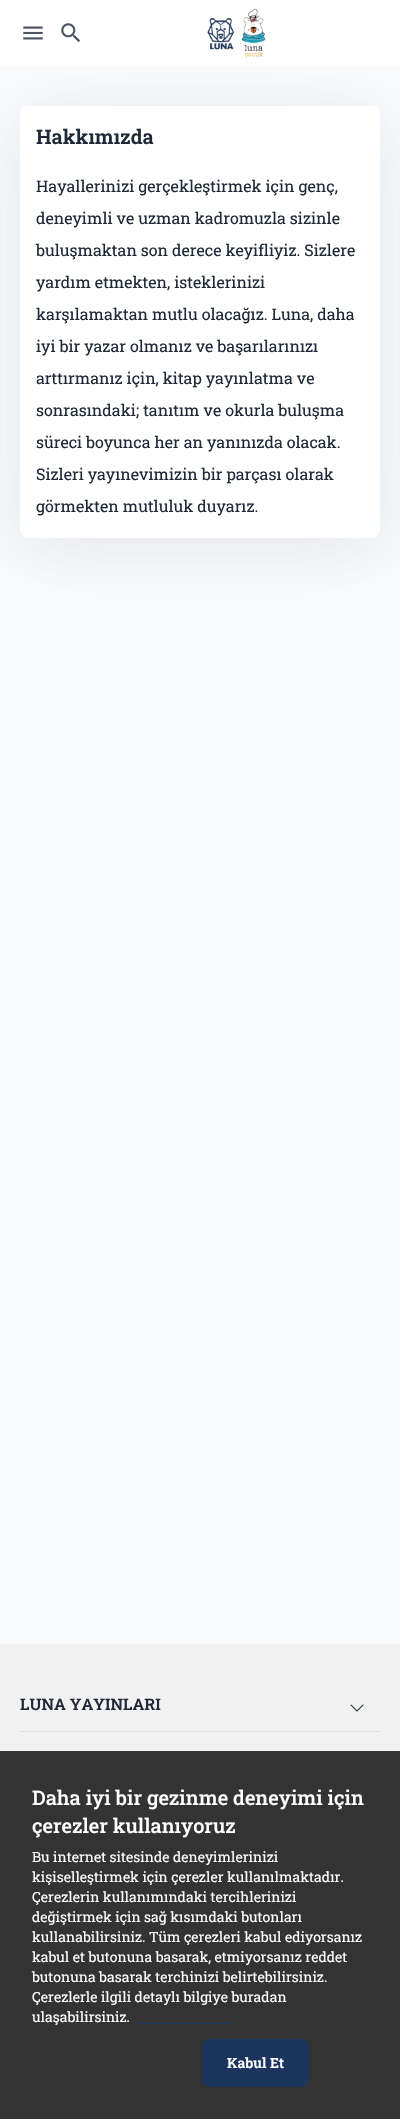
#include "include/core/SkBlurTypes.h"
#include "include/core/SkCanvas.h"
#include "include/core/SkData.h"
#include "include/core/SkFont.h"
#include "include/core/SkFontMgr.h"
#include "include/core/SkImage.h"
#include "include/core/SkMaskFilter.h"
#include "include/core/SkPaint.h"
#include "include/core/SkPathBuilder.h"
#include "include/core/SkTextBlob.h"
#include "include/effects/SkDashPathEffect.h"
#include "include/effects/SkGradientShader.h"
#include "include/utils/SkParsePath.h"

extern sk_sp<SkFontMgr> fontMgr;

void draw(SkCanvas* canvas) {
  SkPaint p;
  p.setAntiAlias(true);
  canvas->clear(SkColorSetRGB(249, 250, 251));
  p.setColor(SkColorSetARGB(13, 30, 60, 107));
  p.setMaskFilter(SkMaskFilter::MakeBlur(kNormal_SkBlurStyle, 45));
  canvas->drawRoundRect(SkRect::MakeLTRB(20, 118, 380, 550), 8, 8, p);
  p.setMaskFilter(nullptr);
  p.setMaskFilter(SkMaskFilter::MakeBlur(kNormal_SkBlurStyle, 30));
  canvas->drawRoundRect(SkRect::MakeLTRB(20, 114, 380, 546), 8, 8, p);
  p.setMaskFilter(nullptr);
  p.setColor(SK_ColorWHITE);
  canvas->drawRect(SkRect::MakeLTRB(0, 0, 400, 66), p);
  canvas->drawImageRect(SkImages::DeferredFromEncodedData(SkData::MakeFromFileName("images/1.png")), SkRect::MakeLTRB(23, 26, 43, 40), SkSamplingOptions());
  canvas->drawImageRect(SkImages::DeferredFromEncodedData(SkData::MakeFromFileName("images/2.png")), SkRect::MakeLTRB(61, 23, 81, 43), SkSamplingOptions());
  canvas->drawImageRect(SkImages::DeferredFromEncodedData(SkData::MakeFromFileName("images/3.png")), SkRect::MakeLTRB(207, 8, 266, 58), SkSamplingOptions());
  canvas->drawRoundRect(SkRect::MakeLTRB(20, 106, 380, 538), 8, 8, p);
  p.setColor(SkColorSetRGB(241, 241, 241));
  canvas->drawRect(SkRect::MakeLTRB(0, 1644, 400, 1751), p);
  p.setColor(SkColorSetRGB(221, 221, 221));
  canvas->drawRect(SkRect::MakeLTRB(20, 1731, 380, 1732), p);
  canvas->drawImageRect(SkImages::DeferredFromEncodedData(SkData::MakeFromFileName("images/4.png")), SkRect::MakeLTRB(350, 1704, 364, 1712), SkSamplingOptions());
  p.setColor(SkColorSetRGB(51, 51, 51));
  canvas->drawRect(SkRect::MakeLTRB(0, 1751, 400, 2119), p);
  p.setColor(SkColorSetRGB(27, 53, 95));
  canvas->drawRect(SkRect::MakeLTRB(133, 2023, 236, 2024), p);
  canvas->drawRoundRect(SkRect::MakeLTRB(202.5f, 2039.5f, 308.5f, 2086.5f), 7.5f, 7.5f, p);
  p.setStyle(SkPaint::kStroke_Style);
  p.setStrokeWidth(1);
  canvas->drawRoundRect(SkRect::MakeLTRB(202.5f, 2039.5f, 308.5f, 2086.5f), 7.5f, 7.5f, p);
  SkFont font1(fontMgr->matchFamilyStyle("Roboto Slab", SkFontStyle(600, SkFontStyle::kNormal_Width, SkFontStyle::kUpright_Slant)), 20);
  font1.setSubpixel(true);
  p.setStyle(SkPaint::kFill_Style);
  p.setColor(SkColorSetRGB(31, 41, 55));
  canvas->drawString("Hakkımızda", 36, 144, font1, p);
  SkFont font2(fontMgr->matchFamilyStyle("Roboto Slab", SkFontStyle::Normal()), 16);
  font2.setSubpixel(true);
  canvas->drawString("Hayallerinizi gerçekleştirmek için genç,", 36, 192, font2, p);
  canvas->drawString("deneyimli ve uzman kadromuzla sizinle", 36, 224, font2, p);
  canvas->drawString("buluşmaktan son derece keyifliyiz. Sizlere", 36, 256, font2, p);
  canvas->drawString("yardım etmekten, isteklerinizi", 36, 288, font2, p);
  canvas->drawString("karşılamaktan mutlu olacağız. Luna, daha", 36, 320, font2, p);
  canvas->drawString("iyi bir yazar olmanız ve başarılarınızı", 36, 352, font2, p);
  canvas->drawString("arttırmanız için, kitap yayınlatma ve", 36, 384, font2, p);
  canvas->drawString("sonrasındaki; tanıtım ve okurla buluşma", 36, 416, font2, p);
  canvas->drawString("süreci boyunca her an yanınızda olacak.", 36, 448, font2, p);
  canvas->drawString("Sizleri yayınevimizin bir parçası olarak", 36, 480, font2, p);
  canvas->drawString("görmekten mutluluk duyarız.", 36, 512, font2, p);
  SkFont font3(fontMgr->matchFamilyStyle("Roboto Slab", SkFontStyle(600, SkFontStyle::kNormal_Width, SkFontStyle::kUpright_Slant)), 16);
  font3.setSubpixel(true);
  canvas->drawString("LUNA YAYINLARI", 20, 1710, font3, p);
  SkFont font4(fontMgr->matchFamilyStyle("Roboto Slab", SkFontStyle(500, SkFontStyle::kNormal_Width, SkFontStyle::kUpright_Slant)), 20);
  font4.setSubpixel(true);
  p.setColor(SK_ColorWHITE);
  canvas->drawString("Daha iyi bir gezinme deneyimi için", 32, 1805, font4, p);
  canvas->drawString("çerezler kullanıyoruz", 32, 1833, font4, p);
  SkFont font5(fontMgr->matchFamilyStyle("Roboto Slab", SkFontStyle::Normal()), 14);
  font5.setSubpixel(true);
  canvas->drawString("Bu internet sitesinde deneyimlerinizi", 32, 1862, font5, p);
  canvas->drawString("kişiselleştirmek için çerezler kullanılmaktadır.", 32, 1882, font5, p);
  canvas->drawString("Çerezlerin kullanımındaki tercihlerinizi", 32, 1902, font5, p);
  canvas->drawString("değiştirmek için sağ kısımdaki butonları", 32, 1922, font5, p);
  canvas->drawString("kullanabilirsiniz. Tüm çerezleri kabul ediyorsanız", 32, 1942, font5, p);
  canvas->drawString("kabul et butonuna basarak, etmiyorsanız reddet", 32, 1962, font5, p);
  canvas->drawString("butonuna basarak terchinizi belirtebilirsiniz.", 32, 1982, font5, p);
  canvas->drawString("Çerezlerle ilgili detaylı bilgiye buradan", 32, 2002, font5, p);
  canvas->drawString("ulaşabilirsiniz.", 32, 2022, font5, p);
  SkFont font6(fontMgr->matchFamilyStyle("Roboto Slab", SkFontStyle(600, SkFontStyle::kNormal_Width, SkFontStyle::kUpright_Slant)), 14);
  font6.setSubpixel(true);
  canvas->drawString("Kabul Et", 227, 2068, font6, p);
}
